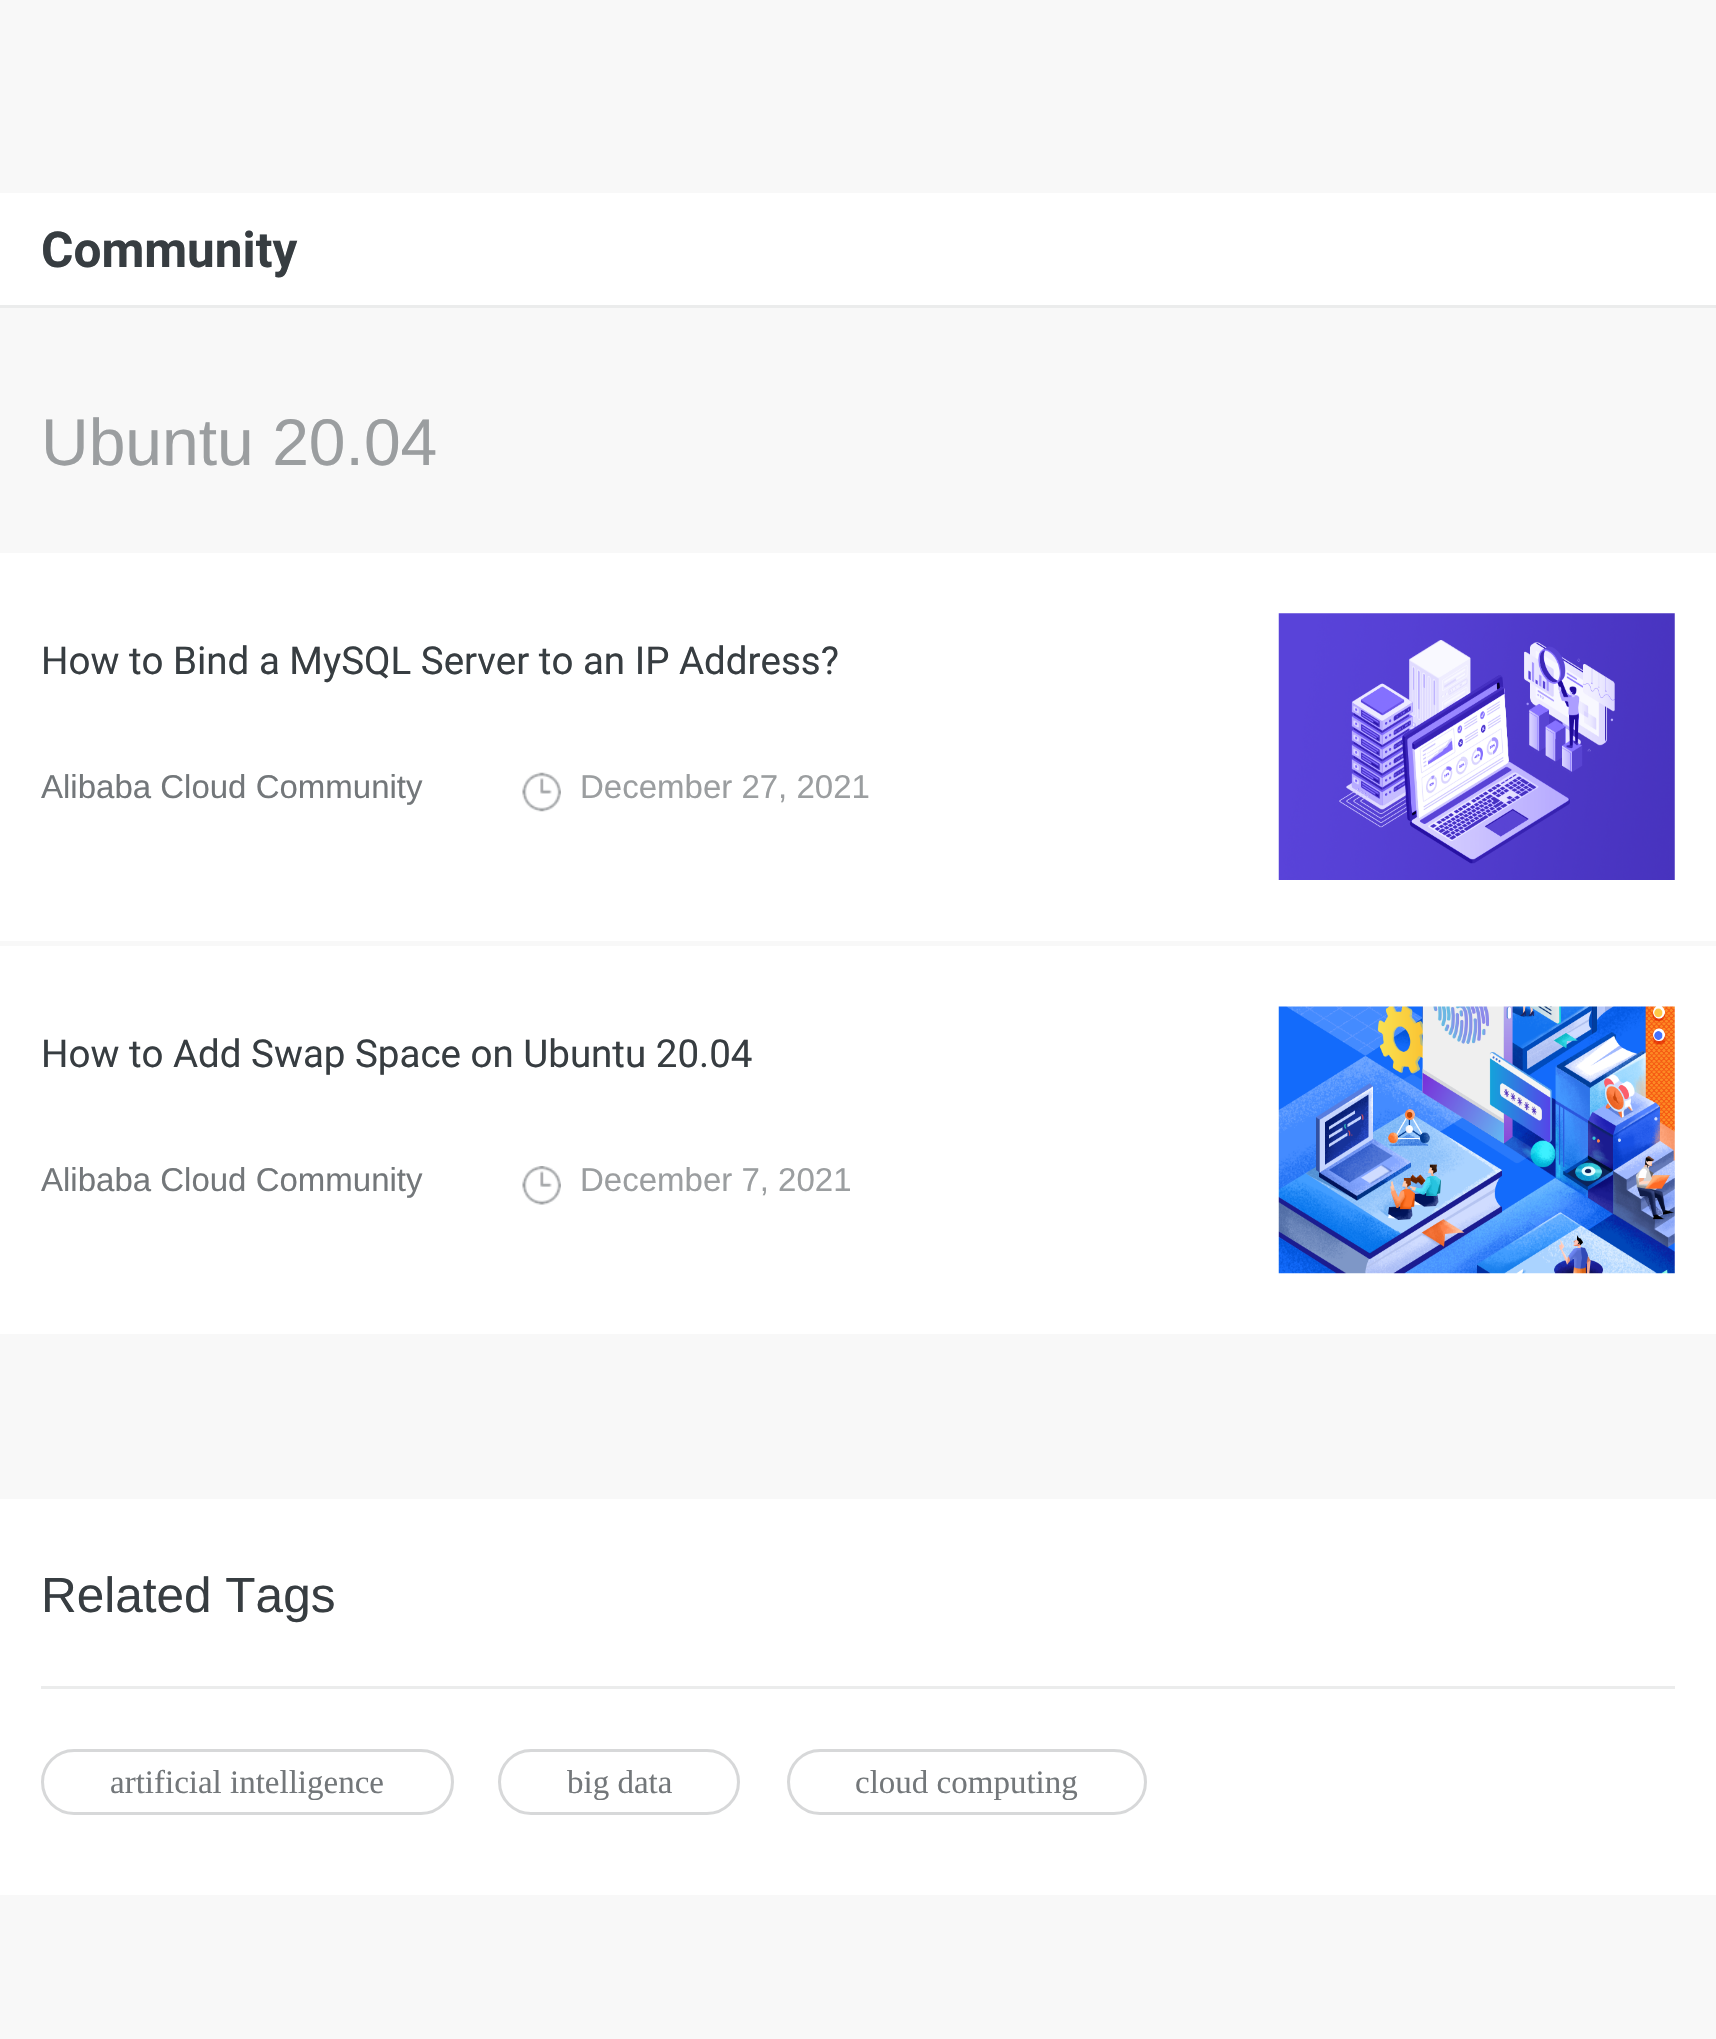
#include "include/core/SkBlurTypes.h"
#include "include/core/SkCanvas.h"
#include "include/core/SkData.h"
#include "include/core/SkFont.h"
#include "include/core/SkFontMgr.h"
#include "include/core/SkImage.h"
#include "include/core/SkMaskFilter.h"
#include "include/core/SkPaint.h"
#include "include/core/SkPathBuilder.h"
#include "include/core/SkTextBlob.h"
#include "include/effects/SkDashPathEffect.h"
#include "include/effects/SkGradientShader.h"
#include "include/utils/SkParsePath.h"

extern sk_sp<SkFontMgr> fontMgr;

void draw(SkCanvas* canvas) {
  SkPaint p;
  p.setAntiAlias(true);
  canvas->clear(SkColorSetRGB(248, 248, 248));
  p.setColor(SK_ColorWHITE);
  canvas->drawRect(SkRect::MakeLTRB(0, 193, 1716, 305), p);
  p.setColor(SkColorSetRGB(235, 236, 236));
  canvas->drawRect(SkRect::MakeLTRB(0, 305, 1716, 308), p);
  p.setColor(SK_ColorWHITE);
  canvas->drawRect(SkRect::MakeLTRB(0, 553, 1716, 941), p);
  canvas->drawImageRect(SkImages::DeferredFromEncodedData(SkData::MakeFromFileName("images/1.png")), SkRect::MakeLTRB(522, 772, 561, 812), SkSamplingOptions());
  canvas->drawImageRect(SkImages::DeferredFromEncodedData(SkData::MakeFromFileName("images/2.png")), SkRect::MakeLTRB(1278, 613, 1675, 880), SkSamplingOptions());
  canvas->drawRect(SkRect::MakeLTRB(0, 946, 1716, 1334), p);
  canvas->drawImageRect(SkImages::DeferredFromEncodedData(SkData::MakeFromFileName("images/3.png")), SkRect::MakeLTRB(522, 1166, 561, 1205), SkSamplingOptions());
  canvas->drawImageRect(SkImages::DeferredFromEncodedData(SkData::MakeFromFileName("images/4.png")), SkRect::MakeLTRB(1278, 1006, 1675, 1274), SkSamplingOptions());
  canvas->drawRect(SkRect::MakeLTRB(0, 1499, 1716, 1895), p);
  p.setColor(SkColorSetRGB(235, 236, 236));
  canvas->drawRect(SkRect::MakeLTRB(41, 1686, 1675, 1689), p);
  p.setStyle(SkPaint::kStroke_Style);
  p.setStrokeWidth(3);
  p.setColor(SkColorSetRGB(215, 216, 217));
  canvas->drawRoundRect(SkRect::MakeLTRB(42.5f, 1750.5f, 452.5f, 1813.5f), 31.5f, 31.5f, p);
  canvas->drawRoundRect(SkRect::MakeLTRB(499.5f, 1750.5f, 738.5f, 1813.5f), 31.5f, 31.5f, p);
  canvas->drawRoundRect(SkRect::MakeLTRB(788.5f, 1750.5f, 1145.5f, 1813.5f), 31.5f, 31.5f, p);
  SkFont font1(fontMgr->matchFamilyStyle("Roboto", SkFontStyle::Bold()), 49.5f);
  font1.setSubpixel(true);
  p.setStyle(SkPaint::kFill_Style);
  p.setColor(SkColorSetRGB(55, 61, 65));
  canvas->drawString("Community", 41, 267, font1, p);
  SkFont font2(fontMgr->matchFamilyStyle("Liberation Sans", SkFontStyle::Normal()), 66);
  font2.setSubpixel(true);
  p.setColor(SkColorSetRGB(155, 158, 160));
  canvas->drawString("Ubuntu 20.04", 41, 465, font2, p);
  SkFont font3(fontMgr->matchFamilyStyle("Roboto", SkFontStyle::Normal()), 38.5f);
  font3.setSubpixel(true);
  p.setColor(SkColorSetRGB(55, 61, 65));
  canvas->drawString("How to Bind a MySQL Server to an IP Address?", 41, 674, font3, p);
  SkFont font4(fontMgr->matchFamilyStyle("Liberation Sans", SkFontStyle::Normal()), 33);
  font4.setSubpixel(true);
  p.setColor(SkColorSetRGB(115, 119, 122));
  canvas->drawString("Alibaba Cloud Community", 41, 798, font4, p);
  p.setColor(SkColorSetRGB(155, 158, 160));
  canvas->drawString("December 27, 2021", 580, 798, font4, p);
  p.setColor(SkColorSetRGB(55, 61, 65));
  canvas->drawString("How to Add Swap Space on Ubuntu 20.04", 41, 1067, font3, p);
  p.setColor(SkColorSetRGB(115, 119, 122));
  canvas->drawString("Alibaba Cloud Community", 41, 1191, font4, p);
  p.setColor(SkColorSetRGB(155, 158, 160));
  canvas->drawString("December 7, 2021", 580, 1191, font4, p);
  SkFont font5(fontMgr->matchFamilyStyle("Liberation Sans", SkFontStyle::Normal()), 49.5f);
  font5.setSubpixel(true);
  p.setColor(SkColorSetRGB(55, 61, 65));
  canvas->drawString("Related Tags", 41, 1612, font5, p);
  SkFont font6(fontMgr->matchFamilyStyle("Liberation Serif", SkFontStyle::Normal()), 33);
  font6.setSubpixel(true);
  p.setColor(SkColorSetRGB(115, 119, 122));
  canvas->drawString("artificial intelligence", 110, 1793, font6, p);
  canvas->drawString("big data", 567, 1793, font6, p);
  canvas->drawString("cloud computing", 855, 1793, font6, p);
}
